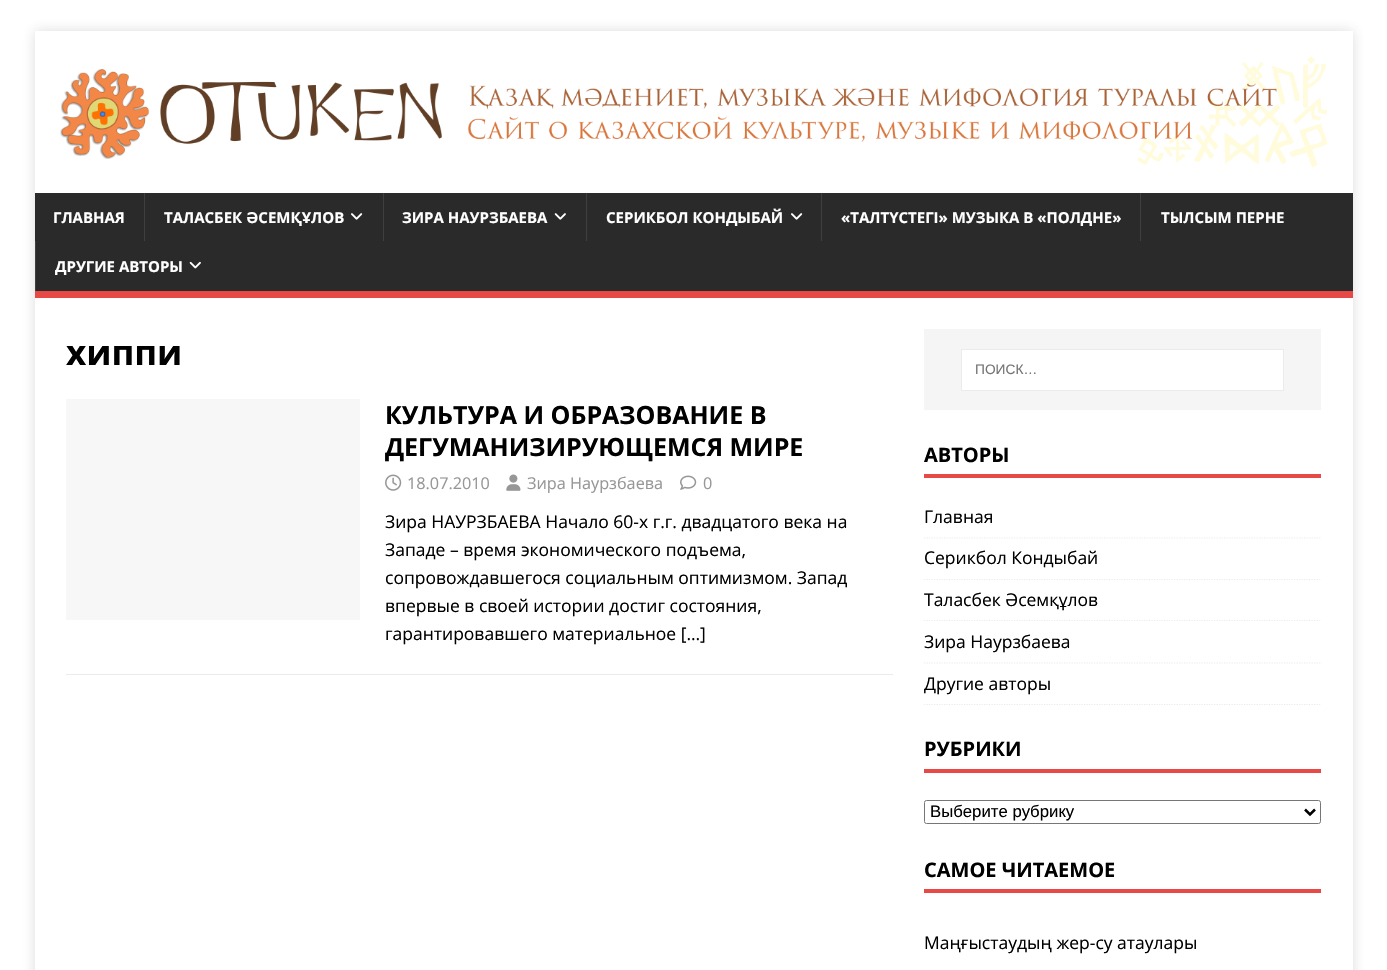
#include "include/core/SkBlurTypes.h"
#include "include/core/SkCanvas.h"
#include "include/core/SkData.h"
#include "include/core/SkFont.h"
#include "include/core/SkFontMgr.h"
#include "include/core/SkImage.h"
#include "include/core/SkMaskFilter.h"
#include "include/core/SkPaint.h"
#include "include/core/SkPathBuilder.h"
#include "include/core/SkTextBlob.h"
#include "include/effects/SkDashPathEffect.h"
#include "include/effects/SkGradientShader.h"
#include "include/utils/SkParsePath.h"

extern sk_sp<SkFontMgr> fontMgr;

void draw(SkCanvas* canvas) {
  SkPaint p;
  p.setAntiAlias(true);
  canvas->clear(SK_ColorWHITE);
  p.setColor(SkColorSetARGB(43, 50, 50, 50));
  p.setMaskFilter(SkMaskFilter::MakeBlur(kNormal_SkBlurStyle, 6));
  canvas->drawRect(SkRect::MakeLTRB(35, 31, 1353, 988), p);
  p.setMaskFilter(nullptr);
  p.setColor(SK_ColorWHITE);
  canvas->drawRect(SkRect::MakeLTRB(35, 31, 1353, 193), p);
  canvas->drawImageRect(SkImages::DeferredFromEncodedData(SkData::MakeFromFileName("images/1.png")), SkRect::MakeLTRB(60, 56, 1328, 168), SkSamplingOptions());
  p.setColor(SkColorSetRGB(42, 42, 42));
  canvas->drawRect(SkRect::MakeLTRB(35, 193, 1353, 291), p);
  p.setColor(SkColorSetRGB(230, 73, 70));
  canvas->drawRect(SkRect::MakeLTRB(35, 291, 1353, 298), p);
  p.setColor(SkColorSetRGB(63, 63, 63));
  canvas->drawRect(SkRect::MakeLTRB(144, 193, 145, 241), p);
  canvas->drawImageRect(SkImages::DeferredFromEncodedData(SkData::MakeFromFileName("images/2.png")), SkRect::MakeLTRB(351, 213, 363, 220), SkSamplingOptions());
  canvas->drawRect(SkRect::MakeLTRB(383, 193, 384, 241), p);
  canvas->drawImageRect(SkImages::DeferredFromEncodedData(SkData::MakeFromFileName("images/3.png")), SkRect::MakeLTRB(554, 213, 566, 220), SkSamplingOptions());
  canvas->drawRect(SkRect::MakeLTRB(586, 193, 587, 241), p);
  canvas->drawImageRect(SkImages::DeferredFromEncodedData(SkData::MakeFromFileName("images/2.png")), SkRect::MakeLTRB(791, 213, 803, 220), SkSamplingOptions());
  canvas->drawRect(SkRect::MakeLTRB(821, 193, 822, 241), p);
  canvas->drawRect(SkRect::MakeLTRB(1140, 193, 1141, 241), p);
  canvas->drawRect(SkRect::MakeLTRB(35, 241, 36, 291), p);
  canvas->drawImageRect(SkImages::DeferredFromEncodedData(SkData::MakeFromFileName("images/4.png")), SkRect::MakeLTRB(189, 261, 201, 269), SkSamplingOptions());
  p.setColor(SK_ColorWHITE);
  canvas->drawRect(SkRect::MakeLTRB(35, 298, 1353, 970), p);
  p.setColor(SkColorSetRGB(235, 235, 235));
  canvas->drawRect(SkRect::MakeLTRB(66, 674, 893, 675), p);
  p.setColor(SkColorSetRGB(247, 247, 247));
  canvas->drawRect(SkRect::MakeLTRB(66, 399, 360, 620), p);
  canvas->drawImageRect(SkImages::DeferredFromEncodedData(SkData::MakeFromFileName("images/5.png")), SkRect::MakeLTRB(385, 474, 402, 491), SkSamplingOptions());
  canvas->drawImageRect(SkImages::DeferredFromEncodedData(SkData::MakeFromFileName("images/6.png")), SkRect::MakeLTRB(506, 474, 521, 491), SkSamplingOptions());
  canvas->drawImageRect(SkImages::DeferredFromEncodedData(SkData::MakeFromFileName("images/7.png")), SkRect::MakeLTRB(680, 475, 697, 490), SkSamplingOptions());
  p.setColor(SkColorSetRGB(245, 245, 245));
  canvas->drawRect(SkRect::MakeLTRB(924, 329, 1321, 410), p);
  p.setColor(SK_ColorWHITE);
  canvas->drawRect(SkRect::MakeLTRB(961.5f, 349.5f, 1283.5f, 390.5f), p);
  p.setStyle(SkPaint::kStroke_Style);
  p.setStrokeWidth(1);
  p.setColor(SkColorSetRGB(235, 235, 235));
  canvas->drawRect(SkRect::MakeLTRB(961.5f, 349.5f, 1283.5f, 390.5f), p);
  p.setStyle(SkPaint::kFill_Style);
  p.setColor(SkColorSetRGB(230, 73, 70));
  canvas->drawRect(SkRect::MakeLTRB(924, 474, 1321, 478), p);
  p.setStyle(SkPaint::kStroke_Style);
  p.setStrokeWidth(1.2f);
  p.setColor(SkColorSetRGB(235, 235, 235));
  p.setPathEffect(SkDashPathEffect::Make({{1.25f, 1.25f}}, 0));
  canvas->drawPath(SkPathBuilder().moveTo(924, 538).lineTo(1321, 538).detach(), p);
  p.setPathEffect(nullptr);
  p.setPathEffect(SkDashPathEffect::Make({{1.25f, 1.25f}}, 0));
  canvas->drawPath(SkPathBuilder().moveTo(924, 579.5f).lineTo(1321, 579.5f).detach(), p);
  p.setPathEffect(nullptr);
  p.setPathEffect(SkDashPathEffect::Make({{1.25f, 1.25f}}, 0));
  canvas->drawPath(SkPathBuilder().moveTo(924, 620.5f).lineTo(1321, 620.5f).detach(), p);
  p.setPathEffect(nullptr);
  p.setPathEffect(SkDashPathEffect::Make({{1.25f, 1.25f}}, 0));
  canvas->drawPath(SkPathBuilder().moveTo(924, 663).lineTo(1321, 663).detach(), p);
  p.setPathEffect(nullptr);
  canvas->save();
  canvas->clipRect(SkRect::MakeLTRB(924, 441, 1321, 705));
  p.setPathEffect(SkDashPathEffect::Make({{1.25f, 1.25f}}, 0));
  canvas->drawPath(SkPathBuilder().moveTo(924, 704.5f).lineTo(1321, 704.5f).detach(), p);
  p.setPathEffect(nullptr);
  canvas->restore();
  p.setStyle(SkPaint::kFill_Style);
  p.setColor(SkColorSetRGB(230, 73, 70));
  canvas->drawRect(SkRect::MakeLTRB(924, 769, 1321, 773), p);
  p.setStyle(SkPaint::kStroke_Style);
  p.setStrokeWidth(1);
  p.setColor(SkColorSetRGB(118, 118, 118));
  canvas->drawRoundRect(SkRect::MakeLTRB(924.5f, 800.5f, 1320.5f, 823.5f), 2, 2, p);
  p.setStrokeWidth(2.5f);
  p.setColor(SK_ColorBLACK);
  canvas->drawPath(SkPathBuilder().moveTo(1305, 809.5f).lineTo(1310, 814.5f).lineTo(1315, 809.5f).detach(), p);
  p.setStyle(SkPaint::kFill_Style);
  p.setColor(SkColorSetRGB(230, 73, 70));
  canvas->drawRect(SkRect::MakeLTRB(924, 889, 1321, 893), p);
  SkFont font1(fontMgr->matchFamilyStyle("Open Sans", SkFontStyle::Bold()), 15);
  font1.setSubpixel(true);
  p.setColor(SK_ColorWHITE);
  canvas->drawString("ГЛАВНАЯ", 53, 223, font1, p);
  canvas->drawString("ТАЛАСБЕК ӘСЕМҚҰЛОВ", 164, 223, font1, p);
  canvas->drawString("ЗИРА НАУРЗБАЕВА", 402, 223, font1, p);
  canvas->drawString("СЕРИКБОЛ КОНДЫБАЙ", 606, 223, font1, p);
  canvas->drawString("«ТАЛТҮСТЕГІ» МУЗЫКА В «ПОЛДНЕ»", 841, 223, font1, p);
  canvas->drawString("ТЫЛСЫМ ПЕРНЕ", 1161, 223, font1, p);
  canvas->drawString("ДРУГИЕ АВТОРЫ", 55, 272, font1, p);
  SkFont font2(fontMgr->matchFamilyStyle("Open Sans", SkFontStyle::Bold()), 35);
  font2.setSubpixel(true);
  p.setColor(SK_ColorBLACK);
  canvas->drawString("хиппи", 66, 365, font2, p);
  SkFont font3(fontMgr->matchFamilyStyle("Open Sans", SkFontStyle::Bold()), 25);
  font3.setSubpixel(true);
  canvas->drawString("КУЛЬТУРА И ОБРАЗОВАНИЕ В", 385, 424, font3, p);
  canvas->drawString("ДЕГУМАНИЗИРУЮЩЕМСЯ МИРЕ", 385, 456, font3, p);
  SkFont font4(fontMgr->matchFamilyStyle("Open Sans", SkFontStyle::Normal()), 16.25f);
  font4.setSubpixel(true);
  p.setColor(SkColorSetRGB(151, 151, 151));
  canvas->drawString("18.07.2010", 407, 489, font4, p);
  canvas->drawString("Зира Наурзбаева", 527, 489, font4, p);
  canvas->drawString("0", 703, 489, font4, p);
  SkFont font5(fontMgr->matchFamilyStyle("Open Sans", SkFontStyle::Normal()), 17.5f);
  font5.setSubpixel(true);
  p.setColor(SK_ColorBLACK);
  canvas->drawString("Зира НАУРЗБАЕВА Начало 60-х г.г. двадцатого века на", 385, 528, font5, p);
  canvas->drawString("Западе – время экономического подъема,", 385, 556, font5, p);
  canvas->drawString("сопровождавшегося социальным оптимизмом. Запад", 385, 584, font5, p);
  canvas->drawString("впервые в своей истории достиг состояния,", 385, 612, font5, p);
  canvas->drawString("гарантировавшего материальное […]", 385, 640, font5, p);
  SkFont font6(fontMgr->matchFamilyStyle("Liberation Sans", SkFontStyle::Normal()), 13.75f);
  font6.setSubpixel(true);
  p.setColor(SkColorSetRGB(117, 117, 117));
  canvas->drawString("ПОИСК…", 975, 374, font6, p);
  SkFont font7(fontMgr->matchFamilyStyle("Open Sans", SkFontStyle::Bold()), 20);
  font7.setSubpixel(true);
  p.setColor(SK_ColorBLACK);
  canvas->drawString("АВТОРЫ", 924, 462, font7, p);
  canvas->drawString("Главная", 924, 523, font5, p);
  canvas->drawString("Серикбол Кондыбай", 924, 564, font5, p);
  canvas->drawString("Таласбек Әсемқұлов", 924, 606, font5, p);
  canvas->drawString("Зира Наурзбаева", 924, 648, font5, p);
  canvas->drawString("Другие авторы", 924, 690, font5, p);
  canvas->drawString("РУБРИКИ", 924, 756, font7, p);
  SkFont font8(fontMgr->matchFamilyStyle("Liberation Sans", SkFontStyle::Normal()), 16.75f);
  font8.setSubpixel(true);
  canvas->drawString("Выберите рубрику", 930, 817, font8, p);
  canvas->drawString("САМОЕ ЧИТАЕМОЕ", 924, 877, font7, p);
  canvas->drawString("Маңғыстаудың жер-су атаулары", 924, 949, font5, p);
}
